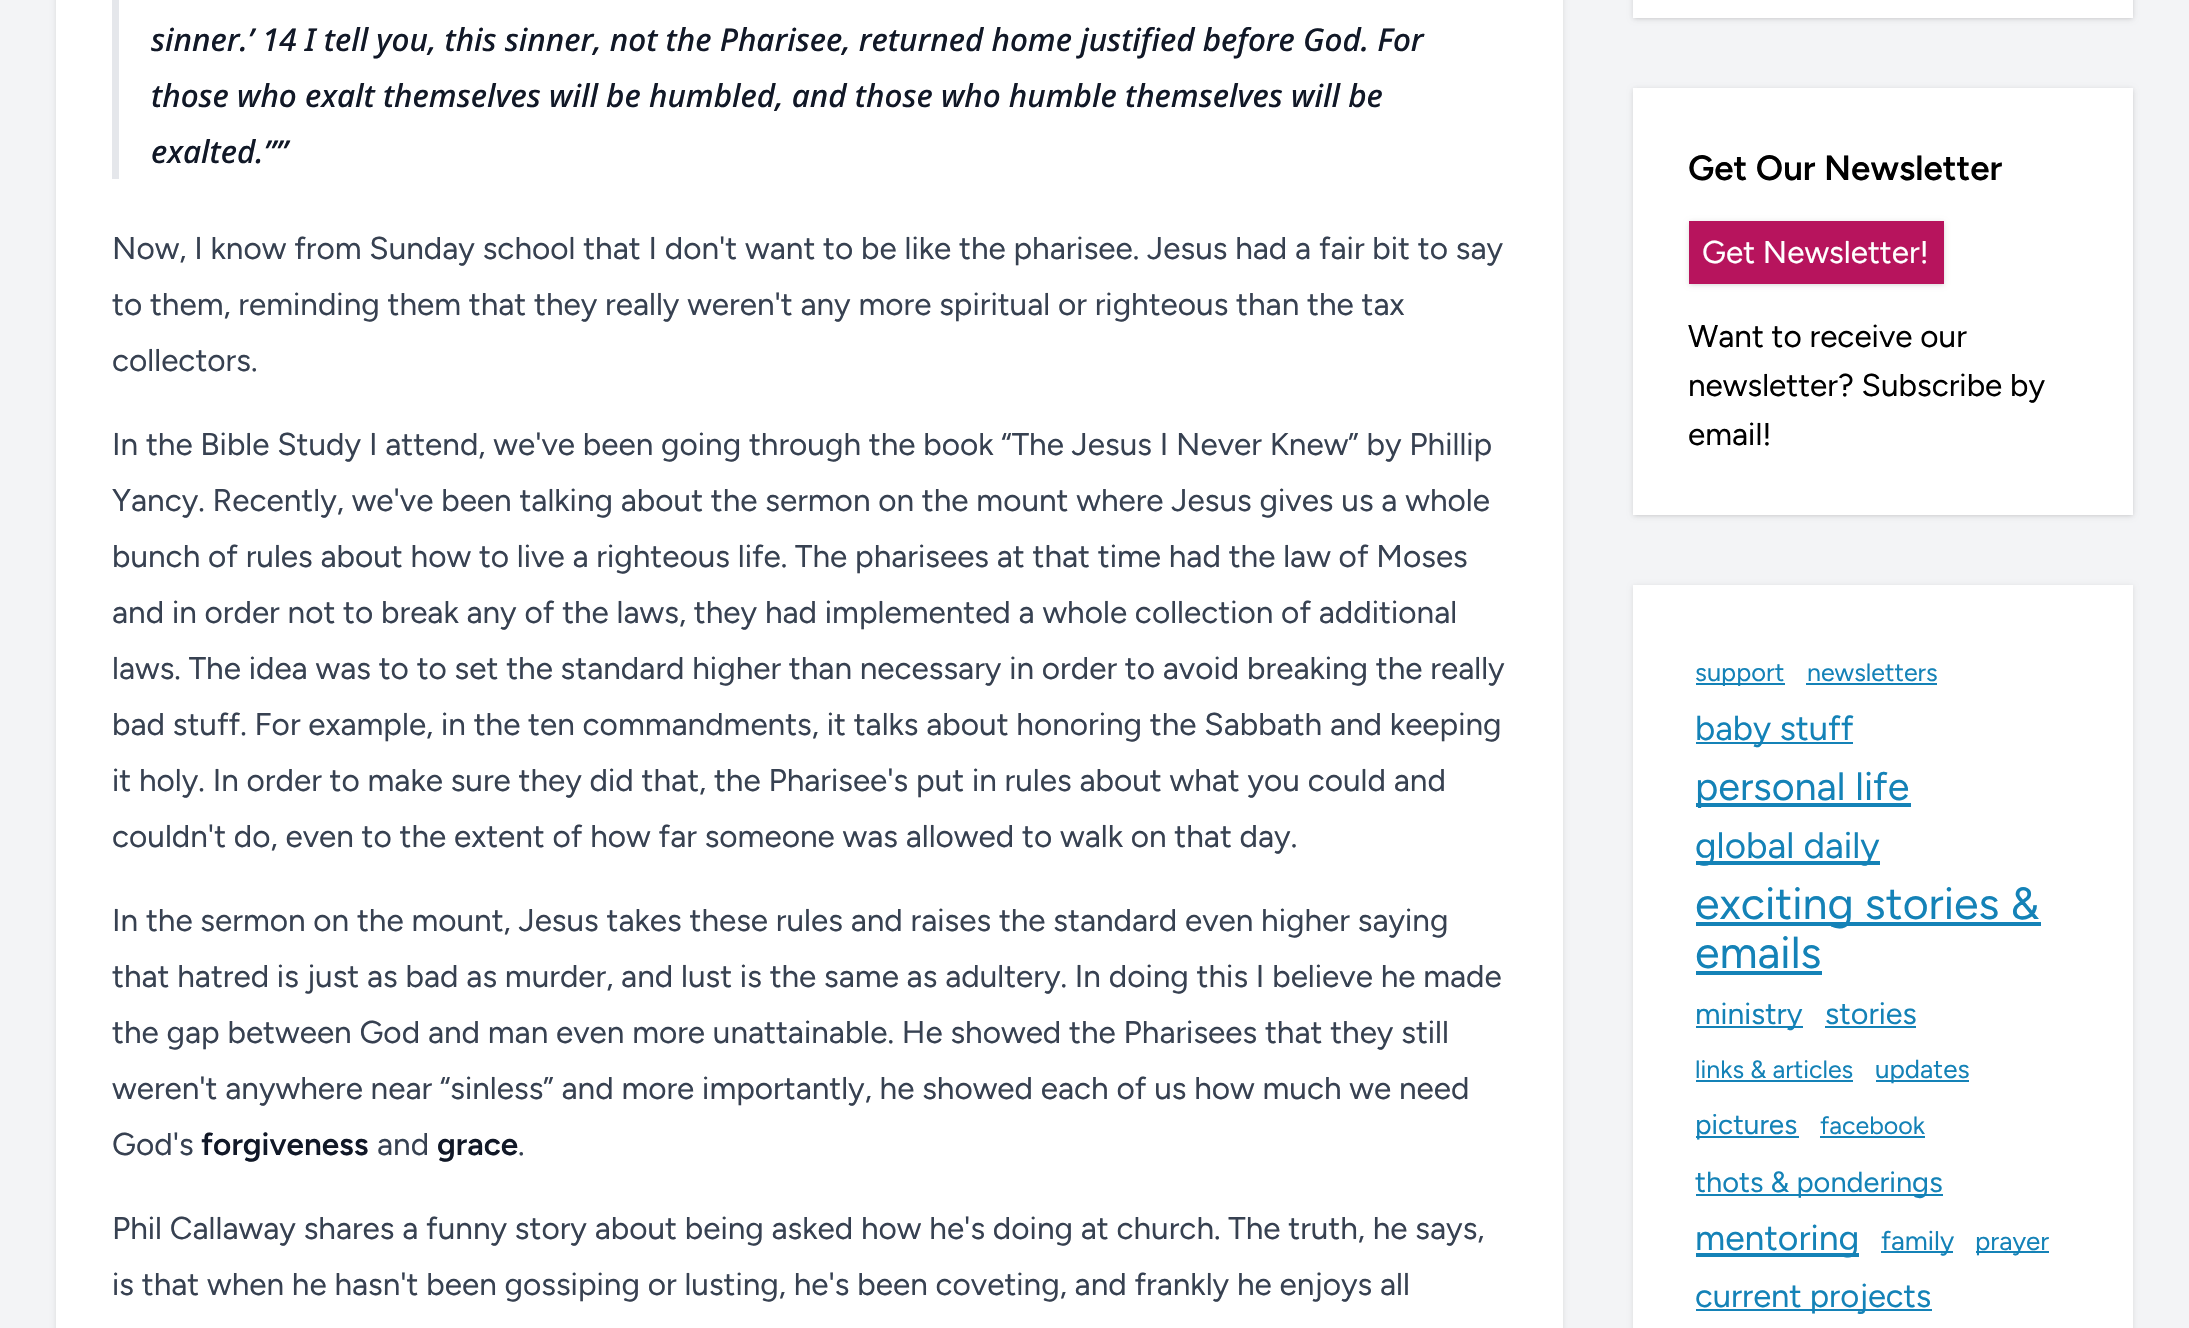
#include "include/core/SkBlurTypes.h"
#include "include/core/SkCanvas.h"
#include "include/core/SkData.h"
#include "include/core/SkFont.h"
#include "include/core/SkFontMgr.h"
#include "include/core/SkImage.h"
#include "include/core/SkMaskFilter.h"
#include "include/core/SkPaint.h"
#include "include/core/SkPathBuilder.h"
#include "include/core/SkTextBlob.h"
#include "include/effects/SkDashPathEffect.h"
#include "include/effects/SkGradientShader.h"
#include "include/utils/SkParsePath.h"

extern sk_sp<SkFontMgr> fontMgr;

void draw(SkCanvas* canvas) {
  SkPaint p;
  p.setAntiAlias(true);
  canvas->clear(SkColorSetRGB(243, 244, 246));
  p.setColor(SkColorSetARGB(26, 0, 0, 0));
  p.setMaskFilter(SkMaskFilter::MakeBlur(kNormal_SkBlurStyle, 2.5f));
  canvas->drawRect(SkRect::MakeLTRB(56, -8, 1563, 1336), p);
  p.setMaskFilter(nullptr);
  p.setColor(SK_ColorWHITE);
  canvas->drawRect(SkRect::MakeLTRB(56, 0, 1563, 1328), p);
  p.setColor(SkColorSetRGB(229, 231, 235));
  canvas->drawRect(SkRect::MakeLTRB(112, 0, 119, 179), p);
  p.setColor(SkColorSetARGB(26, 0, 0, 0));
  p.setMaskFilter(SkMaskFilter::MakeBlur(kNormal_SkBlurStyle, 2));
  canvas->drawRect(SkRect::MakeLTRB(1635, -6, 2132, 18), p);
  p.setMaskFilter(nullptr);
  p.setMaskFilter(SkMaskFilter::MakeBlur(kNormal_SkBlurStyle, 2.5f));
  canvas->drawRect(SkRect::MakeLTRB(1633, -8, 2133, 19), p);
  p.setMaskFilter(nullptr);
  p.setColor(SK_ColorWHITE);
  canvas->drawRect(SkRect::MakeLTRB(1633, 0, 2133, 18), p);
  p.setColor(SkColorSetARGB(26, 0, 0, 0));
  p.setMaskFilter(SkMaskFilter::MakeBlur(kNormal_SkBlurStyle, 2));
  canvas->drawRect(SkRect::MakeLTRB(1635, 91, 2132, 515), p);
  p.setMaskFilter(nullptr);
  p.setMaskFilter(SkMaskFilter::MakeBlur(kNormal_SkBlurStyle, 2.5f));
  canvas->drawRect(SkRect::MakeLTRB(1633, 89, 2133, 516), p);
  p.setMaskFilter(nullptr);
  p.setColor(SK_ColorWHITE);
  canvas->drawRect(SkRect::MakeLTRB(1633, 88, 2133, 515), p);
  p.setColor(SkColorSetARGB(26, 0, 0, 0));
  p.setMaskFilter(SkMaskFilter::MakeBlur(kNormal_SkBlurStyle, 2));
  canvas->drawRect(SkRect::MakeLTRB(1691, 224, 1943, 284), p);
  p.setMaskFilter(nullptr);
  p.setMaskFilter(SkMaskFilter::MakeBlur(kNormal_SkBlurStyle, 2.5f));
  canvas->drawRect(SkRect::MakeLTRB(1689, 222, 1944, 285), p);
  p.setMaskFilter(nullptr);
  p.setColor(SkColorSetRGB(183, 20, 93));
  canvas->drawRect(SkRect::MakeLTRB(1689, 221, 1944, 284), p);
  p.setColor(SkColorSetARGB(26, 0, 0, 0));
  p.setMaskFilter(SkMaskFilter::MakeBlur(kNormal_SkBlurStyle, 2.5f));
  canvas->drawRect(SkRect::MakeLTRB(1633, 586, 2133, 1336), p);
  p.setMaskFilter(nullptr);
  p.setColor(SK_ColorWHITE);
  canvas->drawRect(SkRect::MakeLTRB(1633, 585, 2133, 1328), p);
  p.setColor(SkColorSetRGB(20, 130, 183));
  canvas->drawRect(SkRect::MakeLTRB(1696, 683, 1785, 685), p);
  canvas->drawRect(SkRect::MakeLTRB(1806, 683, 1937, 685), p);
  canvas->drawRect(SkRect::MakeLTRB(1696, 742, 1853, 744), p);
  canvas->drawRect(SkRect::MakeLTRB(1696, 803, 1911, 807), p);
  canvas->drawRect(SkRect::MakeLTRB(1696, 861, 1880, 865), p);
  canvas->drawRect(SkRect::MakeLTRB(1696, 922, 2041, 926), p);
  canvas->drawRect(SkRect::MakeLTRB(1696, 971, 1822, 975), p);
  canvas->drawRect(SkRect::MakeLTRB(1696, 1026, 1803, 1028), p);
  canvas->drawRect(SkRect::MakeLTRB(1825, 1026, 1916, 1028), p);
  canvas->drawRect(SkRect::MakeLTRB(1696, 1080, 1853, 1082), p);
  canvas->drawRect(SkRect::MakeLTRB(1876, 1080, 1969, 1082), p);
  canvas->drawRect(SkRect::MakeLTRB(1696, 1136, 1799, 1138), p);
  canvas->drawRect(SkRect::MakeLTRB(1820, 1136, 1925, 1138), p);
  canvas->drawRect(SkRect::MakeLTRB(1696, 1194, 1943, 1196), p);
  canvas->drawRect(SkRect::MakeLTRB(1696, 1253, 1859, 1257), p);
  canvas->drawRect(SkRect::MakeLTRB(1881, 1251, 1953, 1253), p);
  canvas->drawRect(SkRect::MakeLTRB(1976, 1251, 2049, 1253), p);
  canvas->drawRect(SkRect::MakeLTRB(1696, 1309, 1932, 1311), p);
  SkFont font1(fontMgr->matchFamilyStyle("Noto Sans", SkFontStyle(500, SkFontStyle::kNormal_Width, SkFontStyle::kItalic_Slant)), 31.5f);
  font1.setSubpixel(true);
  p.setColor(SkColorSetRGB(17, 24, 39));
  canvas->drawString("sinner.’ 14 I tell you, this sinner, not the Pharisee, returned home justified before God. For", 151, 51, font1, p);
  canvas->drawString("those who exalt themselves will be humbled, and those who humble themselves will be", 151, 107, font1, p);
  canvas->drawString("exalted.””", 151, 163, font1, p);
  SkFont font2(fontMgr->matchFamilyStyle("Figtree", SkFontStyle(300, SkFontStyle::kNormal_Width, SkFontStyle::kUpright_Slant)), 31.5f);
  font2.setSubpixel(true);
  p.setColor(SkColorSetRGB(55, 65, 81));
  canvas->drawString("Now, I know from Sunday school that I don't want to be like the pharisee. Jesus had a fair bit to say", 112, 259, font2, p);
  canvas->drawString("to them, reminding them that they really weren't any more spiritual or righteous than the tax", 112, 315, font2, p);
  canvas->drawString("collectors.", 112, 371, font2, p);
  canvas->drawString("In the Bible Study I attend, we've been going through the book “The Jesus I Never Knew” by Phillip", 112, 455, font2, p);
  canvas->drawString("Yancy. Recently, we've been talking about the sermon on the mount where Jesus gives us a whole", 112, 511, font2, p);
  canvas->drawString("bunch of rules about how to live a righteous life. The pharisees at that time had the law of Moses", 112, 567, font2, p);
  canvas->drawString("and in order not to break any of the laws, they had implemented a whole collection of additional", 112, 623, font2, p);
  canvas->drawString("laws. The idea was to to set the standard higher than necessary in order to avoid breaking the really", 112, 679, font2, p);
  canvas->drawString("bad stuff. For example, in the ten commandments, it talks about honoring the Sabbath and keeping", 112, 735, font2, p);
  canvas->drawString("it holy. In order to make sure they did that, the Pharisee's put in rules about what you could and", 112, 791, font2, p);
  canvas->drawString("couldn't do, even to the extent of how far someone was allowed to walk on that day.", 112, 847, font2, p);
  canvas->drawString("In the sermon on the mount, Jesus takes these rules and raises the standard even higher saying", 112, 931, font2, p);
  canvas->drawString("that hatred is just as bad as murder, and lust is the same as adultery. In doing this I believe he made", 112, 987, font2, p);
  canvas->drawString("the gap between God and man even more unattainable. He showed the Pharisees that they still", 112, 1043, font2, p);
  canvas->drawString("weren't anywhere near “sinless” and more importantly, he showed each of us how much we need", 112, 1099, font2, p);
  canvas->drawString("God's", 112, 1155, font2, p);
  SkFont font3(fontMgr->matchFamilyStyle("Figtree", SkFontStyle(600, SkFontStyle::kNormal_Width, SkFontStyle::kUpright_Slant)), 31.5f);
  font3.setSubpixel(true);
  p.setColor(SkColorSetRGB(17, 24, 39));
  canvas->drawString("forgiveness", 201, 1155, font3, p);
  p.setColor(SkColorSetRGB(55, 65, 81));
  canvas->drawString("and", 377, 1155, font2, p);
  p.setColor(SkColorSetRGB(17, 24, 39));
  canvas->drawString("grace", 437, 1155, font3, p);
  p.setColor(SkColorSetRGB(55, 65, 81));
  canvas->drawString(".", 518, 1155, font2, p);
  canvas->drawString("Phil Callaway shares a funny story about being asked how he's doing at church. The truth, he says,", 112, 1239, font2, p);
  canvas->drawString("is that when he hasn't been gossiping or lusting, he's been coveting, and frankly he enjoys all", 112, 1295, font2, p);
  SkFont font4(fontMgr->matchFamilyStyle("Figtree", SkFontStyle(600, SkFontStyle::kNormal_Width, SkFontStyle::kUpright_Slant)), 35);
  font4.setSubpixel(true);
  p.setColor(SK_ColorBLACK);
  canvas->drawString("Get Our Newsletter", 1688, 180, font4, p);
  p.setColor(SK_ColorWHITE);
  canvas->drawString("Get Newsletter!", 1702, 263, font2, p);
  p.setColor(SK_ColorBLACK);
  canvas->drawString("Want to receive our", 1688, 347, font2, p);
  canvas->drawString("newsletter? Subscribe by", 1688, 396, font2, p);
  canvas->drawString("email!", 1688, 445, font2, p);
  SkFont font5(fontMgr->matchFamilyStyle("Figtree", SkFontStyle(300, SkFontStyle::kNormal_Width, SkFontStyle::kUpright_Slant)), 25.5f);
  font5.setSubpixel(true);
  p.setColor(SkColorSetRGB(20, 130, 183));
  canvas->drawString("support", 1695, 681, font5, p);
  SkFont font6(fontMgr->matchFamilyStyle("Figtree", SkFontStyle(300, SkFontStyle::kNormal_Width, SkFontStyle::kUpright_Slant)), 25);
  font6.setSubpixel(true);
  canvas->drawString("newsletters", 1807, 681, font6, p);
  SkFont font7(fontMgr->matchFamilyStyle("Figtree", SkFontStyle(300, SkFontStyle::kNormal_Width, SkFontStyle::kUpright_Slant)), 34.5f);
  font7.setSubpixel(true);
  canvas->drawString("baby stuff", 1695, 740, font7, p);
  SkFont font8(fontMgr->matchFamilyStyle("Figtree", SkFontStyle(300, SkFontStyle::kNormal_Width, SkFontStyle::kUpright_Slant)), 39.5f);
  font8.setSubpixel(true);
  canvas->drawString("personal life", 1695, 800, font8, p);
  SkFont font9(fontMgr->matchFamilyStyle("Figtree", SkFontStyle(300, SkFontStyle::kNormal_Width, SkFontStyle::kUpright_Slant)), 36.75f);
  font9.setSubpixel(true);
  canvas->drawString("global daily", 1695, 858, font9, p);
  SkFont font10(fontMgr->matchFamilyStyle("Figtree", SkFontStyle(300, SkFontStyle::kNormal_Width, SkFontStyle::kUpright_Slant)), 44.75f);
  font10.setSubpixel(true);
  canvas->drawString("exciting stories &", 1695, 919, font10, p);
  canvas->drawString("emails", 1695, 968, font10, p);
  SkFont font11(fontMgr->matchFamilyStyle("Figtree", SkFontStyle(300, SkFontStyle::kNormal_Width, SkFontStyle::kUpright_Slant)), 30);
  font11.setSubpixel(true);
  canvas->drawString("ministry", 1695, 1024, font11, p);
  SkFont font12(fontMgr->matchFamilyStyle("Figtree", SkFontStyle(300, SkFontStyle::kNormal_Width, SkFontStyle::kUpright_Slant)), 30.5f);
  font12.setSubpixel(true);
  canvas->drawString("stories", 1825, 1024, font12, p);
  canvas->drawString("links & articles", 1695, 1078, font6, p);
  SkFont font13(fontMgr->matchFamilyStyle("Figtree", SkFontStyle(300, SkFontStyle::kNormal_Width, SkFontStyle::kUpright_Slant)), 26);
  font13.setSubpixel(true);
  canvas->drawString("updates", 1875, 1078, font13, p);
  SkFont font14(fontMgr->matchFamilyStyle("Figtree", SkFontStyle(300, SkFontStyle::kNormal_Width, SkFontStyle::kUpright_Slant)), 28);
  font14.setSubpixel(true);
  canvas->drawString("pictures", 1695, 1134, font14, p);
  canvas->drawString("facebook", 1820, 1134, font6, p);
  SkFont font15(fontMgr->matchFamilyStyle("Figtree", SkFontStyle(300, SkFontStyle::kNormal_Width, SkFontStyle::kUpright_Slant)), 29);
  font15.setSubpixel(true);
  canvas->drawString("thots & ponderings", 1695, 1192, font15, p);
  SkFont font16(fontMgr->matchFamilyStyle("Figtree", SkFontStyle(300, SkFontStyle::kNormal_Width, SkFontStyle::kUpright_Slant)), 35.5f);
  font16.setSubpixel(true);
  canvas->drawString("mentoring", 1695, 1250, font16, p);
  SkFont font17(fontMgr->matchFamilyStyle("Figtree", SkFontStyle(300, SkFontStyle::kNormal_Width, SkFontStyle::kUpright_Slant)), 27);
  font17.setSubpixel(true);
  canvas->drawString("family", 1881, 1250, font17, p);
  canvas->drawString("prayer", 1975, 1250, font13, p);
  SkFont font18(fontMgr->matchFamilyStyle("Figtree", SkFontStyle(300, SkFontStyle::kNormal_Width, SkFontStyle::kUpright_Slant)), 32.75f);
  font18.setSubpixel(true);
  canvas->drawString("current projects", 1695, 1307, font18, p);
}
